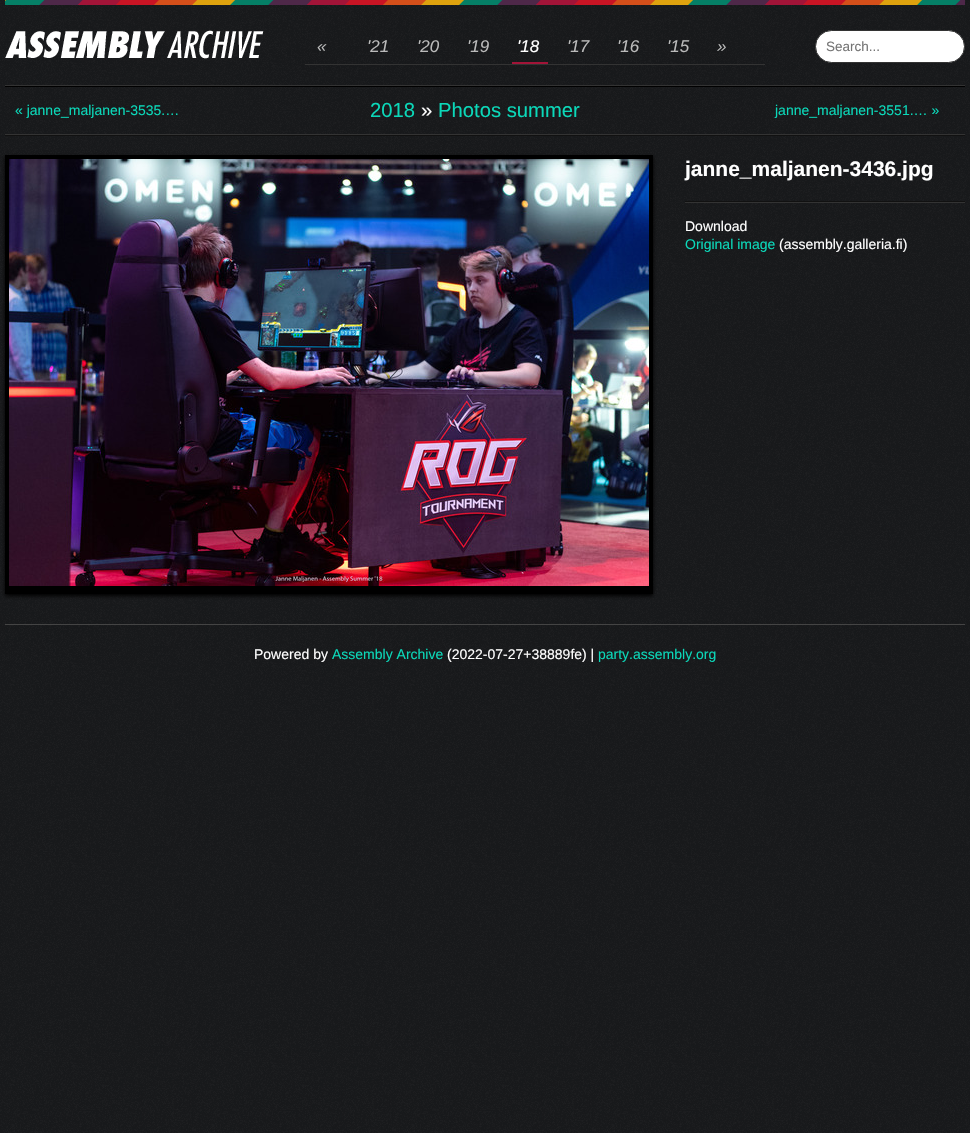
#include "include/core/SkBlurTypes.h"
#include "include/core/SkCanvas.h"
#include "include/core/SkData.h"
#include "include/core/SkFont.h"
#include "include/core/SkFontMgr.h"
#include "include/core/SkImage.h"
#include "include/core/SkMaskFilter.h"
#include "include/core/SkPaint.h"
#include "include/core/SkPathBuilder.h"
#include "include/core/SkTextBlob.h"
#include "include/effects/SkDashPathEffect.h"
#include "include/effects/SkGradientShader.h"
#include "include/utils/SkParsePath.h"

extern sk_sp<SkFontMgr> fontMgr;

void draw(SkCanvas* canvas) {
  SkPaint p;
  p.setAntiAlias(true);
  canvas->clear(SK_ColorWHITE);
  canvas->drawImageRect(SkImages::DeferredFromEncodedData(SkData::MakeFromFileName("images/1.png")), SkRect::MakeLTRB(0, 0, 970, 1133), SkSamplingOptions());
  p.setColor(SK_ColorBLACK);
  canvas->drawRect(SkRect::MakeLTRB(5, 86, 965, 87), p);
  canvas->drawImageRect(SkImages::DeferredFromEncodedData(SkData::MakeFromFileName("images/2.png")), SkRect::MakeLTRB(5, 0, 965, 5), SkSamplingOptions());
  p.setColor(SkColorSetRGB(51, 51, 51));
  canvas->drawRect(SkRect::MakeLTRB(5, 85, 965, 86), p);
  canvas->drawImageRect(SkImages::DeferredFromEncodedData(SkData::MakeFromFileName("images/3.png")), SkRect::MakeLTRB(5, 30, 264, 59), SkSamplingOptions());
  canvas->drawRect(SkRect::MakeLTRB(305, 64, 765, 65), p);
  p.setColor(SkColorSetRGB(162, 20, 56));
  canvas->drawRect(SkRect::MakeLTRB(512, 62, 548, 64), p);
  p.setColor(SK_ColorWHITE);
  canvas->drawRoundRect(SkRect::MakeLTRB(815.5f, 30.5f, 964.5f, 62.5f), 16, 16, p);
  p.setStyle(SkPaint::kStroke_Style);
  p.setStrokeWidth(1);
  p.setColor(SkColorSetRGB(51, 51, 51));
  canvas->drawRoundRect(SkRect::MakeLTRB(815.5f, 30.5f, 964.5f, 62.5f), 16, 16, p);
  p.setStyle(SkPaint::kFill_Style);
  p.setColor(SkColorSetRGB(17, 17, 17));
  canvas->drawRect(SkRect::MakeLTRB(5, 135, 965, 136), p);
  p.setColor(SkColorSetRGB(51, 51, 51));
  canvas->drawRect(SkRect::MakeLTRB(5, 134, 965, 135), p);
  p.setColor(SK_ColorBLACK);
  p.setMaskFilter(SkMaskFilter::MakeBlur(kNormal_SkBlurStyle, 2));
  canvas->drawRect(SkRect::MakeLTRB(5, 157, 653, 596), p);
  p.setMaskFilter(nullptr);
  canvas->drawRect(SkRect::MakeLTRB(5, 155, 653, 594), p);
  canvas->drawImageRect(SkImages::DeferredFromEncodedData(SkData::MakeFromFileName("images/4.png")), SkRect::MakeLTRB(9, 159, 649, 586), SkSamplingOptions());
  p.setColor(SkColorSetRGB(17, 17, 17));
  canvas->drawRect(SkRect::MakeLTRB(685, 201, 965, 202), p);
  p.setColor(SkColorSetRGB(51, 51, 51));
  canvas->drawRect(SkRect::MakeLTRB(685, 202, 965, 203), p);
  p.setColor(SkColorSetRGB(68, 68, 68));
  canvas->drawRect(SkRect::MakeLTRB(5, 624, 965, 625), p);
  SkFont font1(fontMgr->matchFamilyStyle("Liberation Sans", SkFontStyle::Italic()), 17);
  font1.setSubpixel(true);
  p.setColor(SkColorSetRGB(187, 187, 187));
  canvas->drawString("«", 317, 52, font1, p);
  canvas->drawString("'21", 367, 52, font1, p);
  canvas->drawString("'20", 417, 52, font1, p);
  canvas->drawString("'19", 467, 52, font1, p);
  p.setColor(SK_ColorWHITE);
  canvas->drawString("'18", 517, 52, font1, p);
  p.setColor(SkColorSetRGB(187, 187, 187));
  canvas->drawString("'17", 567, 52, font1, p);
  canvas->drawString("'16", 617, 52, font1, p);
  canvas->drawString("'15", 667, 52, font1, p);
  canvas->drawString("»", 717, 52, font1, p);
  SkFont font2(fontMgr->matchFamilyStyle("Liberation Sans", SkFontStyle::Normal()), 13.5f);
  font2.setSubpixel(true);
  p.setColor(SkColorSetRGB(117, 117, 117));
  canvas->drawString("Search...", 826, 51, font2, p);
  SkFont font3(fontMgr->matchFamilyStyle("Liberation Sans", SkFontStyle::Normal()), 14);
  font3.setSubpixel(true);
  p.setColor(SkColorSetRGB(11, 216, 185));
  canvas->drawString("« janne_maljanen-3535.…", 15, 115, font3, p);
  SkFont font4(fontMgr->matchFamilyStyle("Liberation Sans", SkFontStyle::Normal()), 20.25f);
  font4.setSubpixel(true);
  canvas->drawString("2018", 370, 117, font4, p);
  p.setColor(SK_ColorWHITE);
  canvas->drawString("»", 421, 117, font4, p);
  p.setColor(SkColorSetRGB(11, 216, 185));
  canvas->drawString("Photos summer", 438, 117, font4, p);
  canvas->drawString("janne_maljanen-3551.… »", 775, 115, font3, p);
  SkFont font5(fontMgr->matchFamilyStyle("Liberation Sans", SkFontStyle::Bold()), 21);
  font5.setSubpixel(true);
  p.setColor(SK_ColorWHITE);
  canvas->drawString("janne_maljanen-3436.jpg", 685, 176, font5, p);
  canvas->drawString("Download", 685, 231, font3, p);
  p.setColor(SkColorSetRGB(11, 216, 185));
  canvas->drawString("Original image", 685, 249, font3, p);
  p.setColor(SK_ColorWHITE);
  canvas->drawString("(assembly.galleria.fi)", 779, 249, font3, p);
  canvas->drawString("Powered by", 254, 659, font3, p);
  p.setColor(SkColorSetRGB(11, 216, 185));
  canvas->drawString("Assembly Archive", 332, 659, font3, p);
  p.setColor(SK_ColorWHITE);
  canvas->drawString("(2022-07-27+38889fe) |", 447, 659, font3, p);
  p.setColor(SkColorSetRGB(11, 216, 185));
  canvas->drawString("party.assembly.org", 598, 659, font3, p);
}
